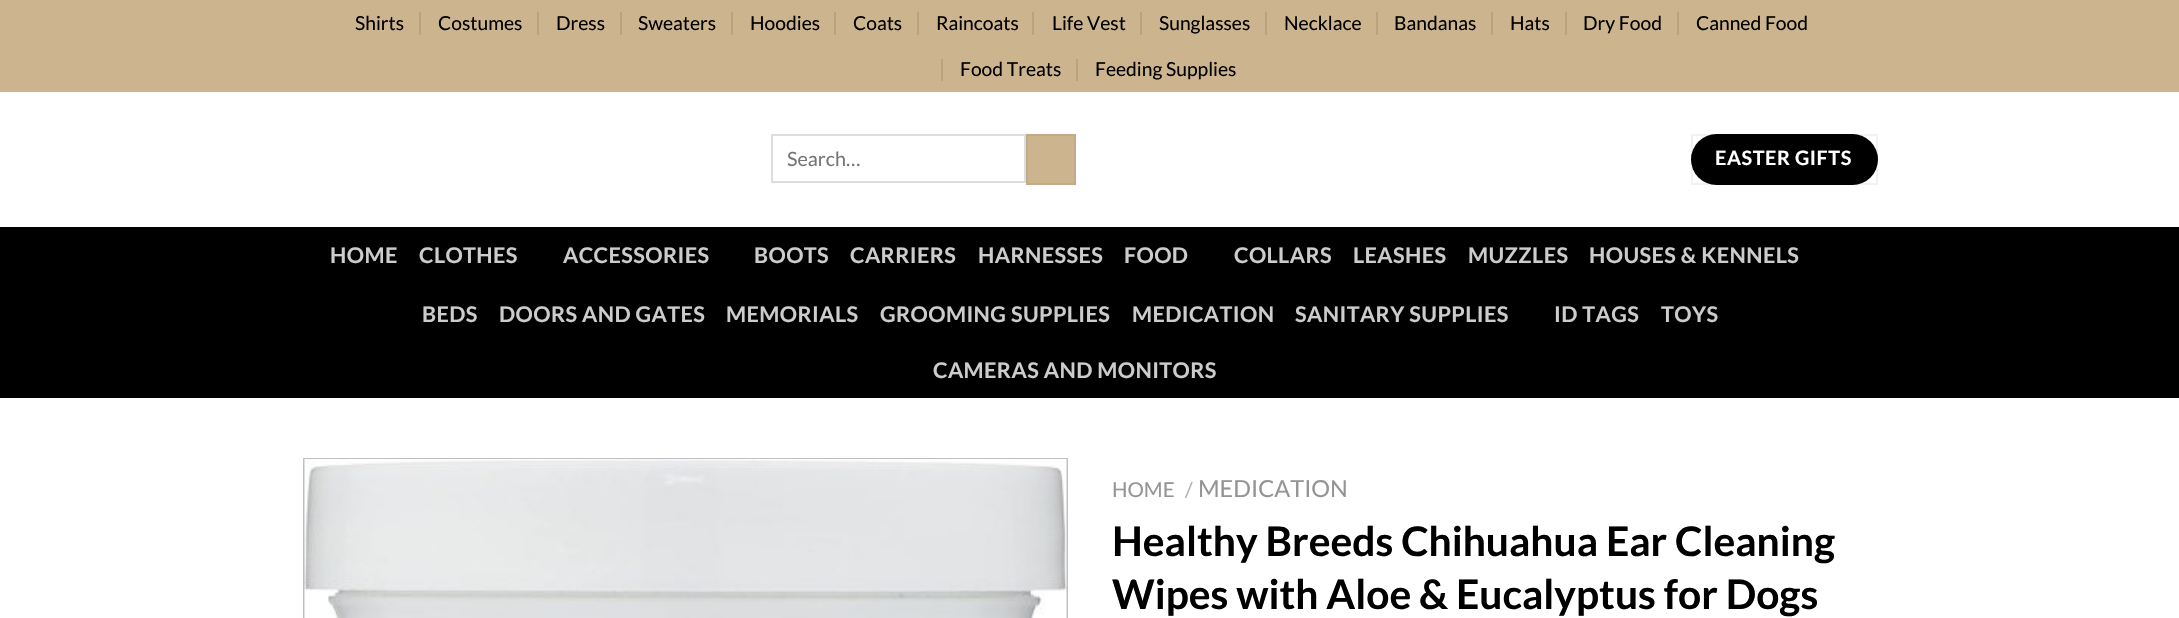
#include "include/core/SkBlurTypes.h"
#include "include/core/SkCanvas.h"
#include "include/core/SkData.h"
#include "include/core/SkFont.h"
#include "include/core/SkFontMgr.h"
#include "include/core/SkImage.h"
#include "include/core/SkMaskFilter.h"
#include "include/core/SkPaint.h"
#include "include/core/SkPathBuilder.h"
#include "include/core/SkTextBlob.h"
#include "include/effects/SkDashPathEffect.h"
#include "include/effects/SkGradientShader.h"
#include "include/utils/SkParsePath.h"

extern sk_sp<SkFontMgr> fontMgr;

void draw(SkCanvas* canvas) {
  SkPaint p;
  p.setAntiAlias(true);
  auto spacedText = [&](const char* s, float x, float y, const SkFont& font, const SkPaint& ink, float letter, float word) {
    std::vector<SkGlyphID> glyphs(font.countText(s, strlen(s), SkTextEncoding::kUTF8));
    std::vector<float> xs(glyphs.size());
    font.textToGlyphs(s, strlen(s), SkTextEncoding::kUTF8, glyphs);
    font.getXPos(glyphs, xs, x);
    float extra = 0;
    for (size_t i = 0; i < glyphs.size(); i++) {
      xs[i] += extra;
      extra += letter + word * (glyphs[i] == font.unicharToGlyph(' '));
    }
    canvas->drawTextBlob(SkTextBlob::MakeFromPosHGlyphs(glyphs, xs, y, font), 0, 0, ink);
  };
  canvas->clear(SK_ColorWHITE);
  p.setColor(SkColorSetRGB(204, 180, 142));
  canvas->drawRect(SkRect::MakeLTRB(0, 0, 2179, 92), p);
  p.setColor(SkColorSetRGB(184, 162, 128));
  canvas->drawRect(SkRect::MakeLTRB(419, 12, 421, 35), p);
  canvas->drawRect(SkRect::MakeLTRB(537, 12, 539, 35), p);
  canvas->drawRect(SkRect::MakeLTRB(620, 12, 622, 35), p);
  canvas->drawRect(SkRect::MakeLTRB(731, 12, 733, 35), p);
  canvas->drawRect(SkRect::MakeLTRB(834, 12, 836, 35), p);
  canvas->drawRect(SkRect::MakeLTRB(917, 12, 919, 35), p);
  canvas->drawRect(SkRect::MakeLTRB(1032, 12, 1034, 35), p);
  canvas->drawRect(SkRect::MakeLTRB(1140, 12, 1142, 35), p);
  canvas->drawRect(SkRect::MakeLTRB(1265, 12, 1267, 35), p);
  canvas->drawRect(SkRect::MakeLTRB(1376, 12, 1378, 35), p);
  canvas->drawRect(SkRect::MakeLTRB(1491, 12, 1493, 35), p);
  canvas->drawRect(SkRect::MakeLTRB(1565, 12, 1567, 35), p);
  canvas->drawRect(SkRect::MakeLTRB(1677, 12, 1679, 35), p);
  canvas->drawRect(SkRect::MakeLTRB(941, 59, 943, 81), p);
  canvas->drawRect(SkRect::MakeLTRB(1076, 59, 1078, 81), p);
  p.setStyle(SkPaint::kStroke_Style);
  p.setStrokeWidth(2);
  p.setColor(SkColorSetRGB(221, 221, 221));
  canvas->drawRect(SkRect::MakeLTRB(772, 135, 1025, 182), p);
  p.setStyle(SkPaint::kFill_Style);
  p.setColor(SkColorSetRGB(204, 180, 142));
  canvas->drawRect(SkRect::MakeLTRB(1027, 135, 1075, 184), p);
  p.setStyle(SkPaint::kStroke_Style);
  p.setColor(SkColorSetRGB(194, 171, 135));
  canvas->drawRect(SkRect::MakeLTRB(1027, 135, 1075, 184), p);
  p.setStyle(SkPaint::kFill_Style);
  p.setColor(SK_ColorBLACK);
  canvas->drawRoundRect(SkRect::MakeLTRB(1691, 134, 1878, 185), 25.5f, 25.5f, p);
  p.setStyle(SkPaint::kStroke_Style);
  p.setColor(SkColorSetARGB(13, 0, 0, 0));
  canvas->drawRect(SkRect::MakeLTRB(1692, 135, 1877, 184), p);
  p.setStyle(SkPaint::kFill_Style);
  p.setColor(SK_ColorBLACK);
  canvas->drawRect(SkRect::MakeLTRB(0, 227, 2179, 398), p);
  p.setStyle(SkPaint::kStroke_Style);
  p.setColor(SkColorSetRGB(192, 192, 192));
  canvas->drawRect(SkRect::MakeLTRB(304, 459, 1067, 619), p);
  canvas->drawImageRect(SkImages::DeferredFromEncodedData(SkData::MakeFromFileName("images/1.png")), SkRect::MakeLTRB(304, 459, 1067, 618), SkSamplingOptions());
  SkFont font1(fontMgr->matchFamilyStyle("Lato", SkFontStyle::Normal()), 19.25f);
  font1.setSubpixel(true);
  p.setStyle(SkPaint::kFill_Style);
  p.setColor(SK_ColorBLACK);
  canvas->drawString("Shirts", 355, 30, font1, p);
  canvas->drawString("Costumes", 438, 30, font1, p);
  canvas->drawString("Dress", 556, 30, font1, p);
  canvas->drawString("Sweaters", 638, 30, font1, p);
  canvas->drawString("Hoodies", 750, 30, font1, p);
  canvas->drawString("Coats", 853, 30, font1, p);
  canvas->drawString("Raincoats", 936, 30, font1, p);
  canvas->drawString("Life Vest", 1052, 30, font1, p);
  canvas->drawString("Sunglasses", 1159, 30, font1, p);
  canvas->drawString("Necklace", 1284, 30, font1, p);
  canvas->drawString("Bandanas", 1394, 30, font1, p);
  canvas->drawString("Hats", 1510, 30, font1, p);
  canvas->drawString("Dry Food", 1583, 30, font1, p);
  canvas->drawString("Canned Food", 1696, 30, font1, p);
  canvas->drawString("Food Treats", 960, 76, font1, p);
  canvas->drawString("Feeding Supplies", 1095, 76, font1, p);
  SkFont font2(fontMgr->matchFamilyStyle("Lato", SkFontStyle::Normal()), 19.75f);
  font2.setSubpixel(true);
  p.setColor(SkColorSetRGB(117, 117, 117));
  canvas->drawString("Search…", 787, 166, font2, p);
  SkFont font3(fontMgr->matchFamilyStyle("Lato", SkFontStyle::Bold()), 19.75f);
  font3.setSubpixel(true);
  p.setColor(SK_ColorWHITE);
  spacedText("EASTER GIFTS", 1715, 165, font3, p, 0.6f, 0);
  SkFont font4(fontMgr->matchFamilyStyle("Lato", SkFontStyle::Bold()), 21.6f);
  font4.setSubpixel(true);
  p.setColor(SkColorSetRGB(204, 204, 204));
  spacedText("HOME", 330, 263, font4, p, 0.4f, 0);
  spacedText("CLOTHES", 419, 263, font4, p, 0.4f, 0);
  spacedText("ACCESSORIES", 563, 263, font4, p, 0.4f, 0);
  spacedText("BOOTS", 754, 263, font4, p, 0.4f, 0);
  spacedText("CARRIERS", 850, 263, font4, p, 0.4f, 0);
  spacedText("HARNESSES", 978, 263, font4, p, 0.4f, 0);
  spacedText("FOOD", 1124, 263, font4, p, 0.4f, 0);
  spacedText("COLLARS", 1234, 263, font4, p, 0.4f, 0);
  spacedText("LEASHES", 1353, 263, font4, p, 0.4f, 0);
  spacedText("MUZZLES", 1468, 263, font4, p, 0.4f, 0);
  spacedText("HOUSES & KENNELS", 1589, 263, font4, p, 0.4f, 0);
  spacedText("BEDS", 422, 322, font4, p, 0.4f, 0);
  spacedText("DOORS AND GATES", 499, 322, font4, p, 0.4f, 0);
  spacedText("MEMORIALS", 726, 322, font4, p, 0.4f, 0);
  spacedText("GROOMING SUPPLIES", 880, 322, font4, p, 0.4f, 0);
  spacedText("MEDICATION", 1132, 322, font4, p, 0.4f, 0);
  spacedText("SANITARY SUPPLIES", 1295, 322, font4, p, 0.4f, 0);
  spacedText("ID TAGS", 1554, 322, font4, p, 0.4f, 0);
  spacedText("TOYS", 1661, 322, font4, p, 0.4f, 0);
  spacedText("CAMERAS AND MONITORS", 933, 378, font4, p, 0.4f, 0);
  SkFont font5(fontMgr->matchFamilyStyle("Lato", SkFontStyle::Normal()), 20.5f);
  font5.setSubpixel(true);
  p.setColor(SkColorSetRGB(148, 148, 148));
  canvas->drawString("HOME", 1112, 497, font5, p);
  p.setColor(SkColorSetRGB(178, 178, 178));
  canvas->drawString("/", 1185, 497, font5, p);
  SkFont font6(fontMgr->matchFamilyStyle("Lato", SkFontStyle::Normal()), 23.5f);
  font6.setSubpixel(true);
  p.setColor(SkColorSetRGB(148, 148, 148));
  canvas->drawString("MEDICATION", 1198, 497, font6, p);
  SkFont font7(fontMgr->matchFamilyStyle("Lato", SkFontStyle::Bold()), 40.75f);
  font7.setSubpixel(true);
  p.setColor(SK_ColorBLACK);
  canvas->drawString("Healthy Breeds Chihuahua Ear Cleaning", 1112, 556, font7, p);
  canvas->drawString("Wipes with Aloe & Eucalyptus for Dogs", 1112, 609, font7, p);
}
